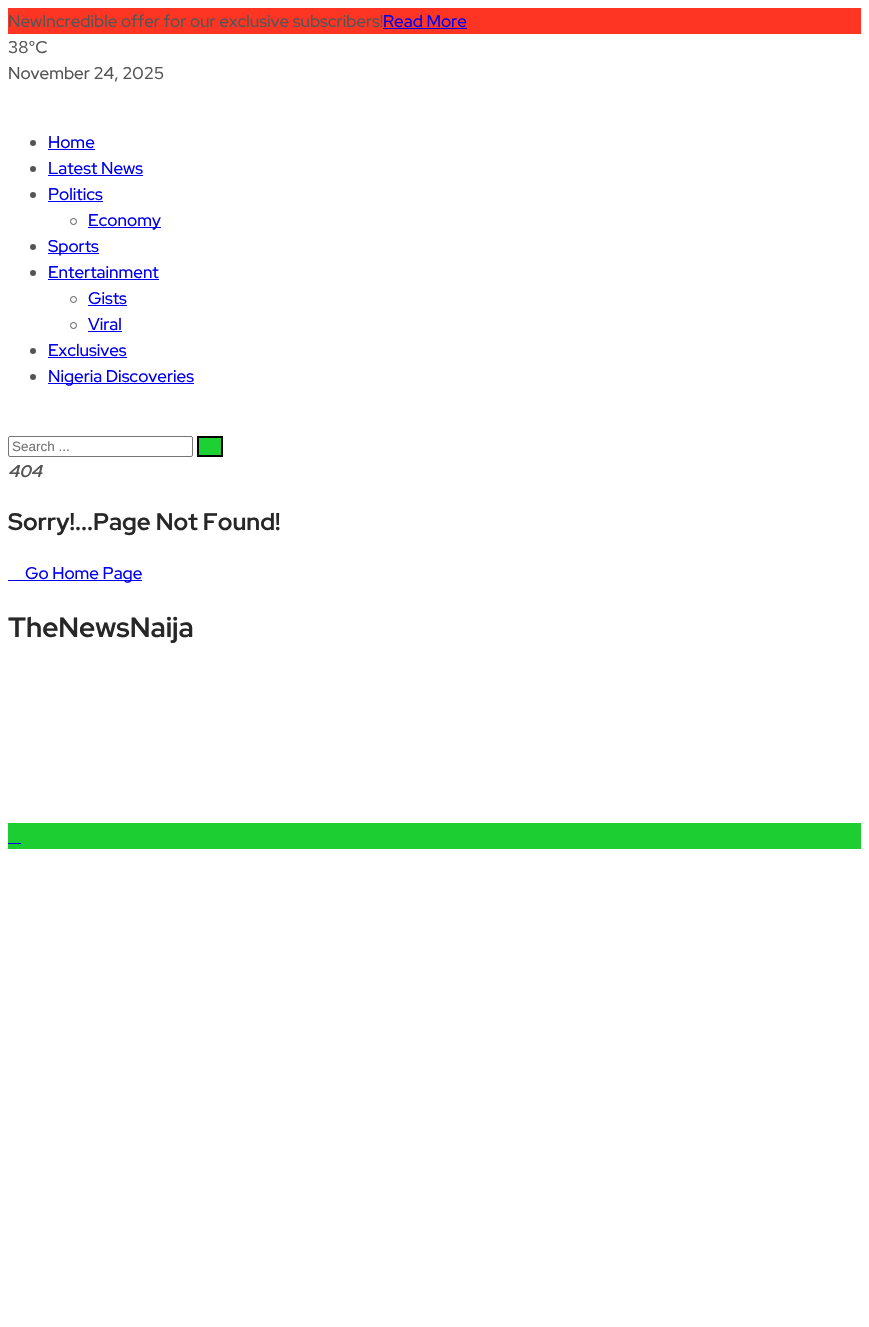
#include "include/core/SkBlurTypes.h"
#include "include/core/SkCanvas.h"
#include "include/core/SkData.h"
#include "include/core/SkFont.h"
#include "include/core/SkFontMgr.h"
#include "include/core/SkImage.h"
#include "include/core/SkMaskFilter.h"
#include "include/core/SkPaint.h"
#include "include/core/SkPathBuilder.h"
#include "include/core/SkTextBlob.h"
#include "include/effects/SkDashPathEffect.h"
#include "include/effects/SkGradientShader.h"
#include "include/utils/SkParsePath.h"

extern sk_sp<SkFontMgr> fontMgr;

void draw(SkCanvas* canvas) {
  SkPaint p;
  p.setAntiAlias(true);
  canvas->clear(SK_ColorWHITE);
  p.setColor(SkColorSetRGB(255, 53, 36));
  canvas->drawRect(SkRect::MakeLTRB(8, 8, 861, 34), p);
  p.setColor(SkColorSetRGB(0, 0, 238));
  canvas->drawRect(SkRect::MakeLTRB(383, 28, 467, 29), p);
  p.setColor(SkColorSetRGB(85, 85, 85));
  canvas->drawCircle(33, 143, 3, p);
  p.setColor(SkColorSetRGB(0, 0, 238));
  canvas->drawRect(SkRect::MakeLTRB(48, 149, 95, 150), p);
  p.setColor(SkColorSetRGB(85, 85, 85));
  canvas->drawCircle(33, 169, 3, p);
  p.setColor(SkColorSetRGB(0, 0, 238));
  canvas->drawRect(SkRect::MakeLTRB(48, 175, 143, 176), p);
  p.setColor(SkColorSetRGB(85, 85, 85));
  canvas->drawCircle(33, 195, 3, p);
  p.setColor(SkColorSetRGB(0, 0, 238));
  canvas->drawRect(SkRect::MakeLTRB(48, 201, 103, 202), p);
  p.setStyle(SkPaint::kStroke_Style);
  p.setStrokeWidth(1);
  p.setColor(SkColorSetRGB(85, 85, 85));
  canvas->drawCircle(73.5f, 221.5f, 3, p);
  p.setStyle(SkPaint::kFill_Style);
  p.setColor(SkColorSetRGB(0, 0, 238));
  canvas->drawRect(SkRect::MakeLTRB(88, 227, 161, 228), p);
  p.setColor(SkColorSetRGB(85, 85, 85));
  canvas->drawCircle(33, 247, 3, p);
  p.setColor(SkColorSetRGB(0, 0, 238));
  canvas->drawRect(SkRect::MakeLTRB(48, 253, 99, 254), p);
  p.setColor(SkColorSetRGB(85, 85, 85));
  canvas->drawCircle(33, 273, 3, p);
  p.setColor(SkColorSetRGB(0, 0, 238));
  canvas->drawRect(SkRect::MakeLTRB(48, 279, 159, 280), p);
  p.setStyle(SkPaint::kStroke_Style);
  p.setColor(SkColorSetRGB(85, 85, 85));
  canvas->drawCircle(73.5f, 299.5f, 3, p);
  p.setStyle(SkPaint::kFill_Style);
  p.setColor(SkColorSetRGB(0, 0, 238));
  canvas->drawRect(SkRect::MakeLTRB(88, 305, 127, 306), p);
  p.setStyle(SkPaint::kStroke_Style);
  p.setColor(SkColorSetRGB(85, 85, 85));
  canvas->drawCircle(73.5f, 325.5f, 3, p);
  p.setStyle(SkPaint::kFill_Style);
  p.setColor(SkColorSetRGB(0, 0, 238));
  canvas->drawRect(SkRect::MakeLTRB(88, 331, 122, 332), p);
  p.setColor(SkColorSetRGB(85, 85, 85));
  canvas->drawCircle(33, 351, 3, p);
  p.setColor(SkColorSetRGB(0, 0, 238));
  canvas->drawRect(SkRect::MakeLTRB(48, 357, 127, 358), p);
  p.setColor(SkColorSetRGB(85, 85, 85));
  canvas->drawCircle(33, 377, 3, p);
  p.setColor(SkColorSetRGB(0, 0, 238));
  canvas->drawRect(SkRect::MakeLTRB(48, 383, 194, 384), p);
  p.setStyle(SkPaint::kStroke_Style);
  p.setColor(SkColorSetRGB(118, 118, 118));
  canvas->drawRoundRect(SkRect::MakeLTRB(8.5f, 436.5f, 192.5f, 456.5f), 1.5f, 1.5f, p);
  p.setStyle(SkPaint::kFill_Style);
  p.setColor(SkColorSetRGB(29, 209, 53));
  canvas->drawRect(SkRect::MakeLTRB(198, 437, 222, 456), p);
  p.setStyle(SkPaint::kStroke_Style);
  p.setStrokeWidth(2);
  p.setColor(SK_ColorBLACK);
  canvas->drawRect(SkRect::MakeLTRB(198, 437, 222, 456), p);
  p.setStyle(SkPaint::kFill_Style);
  p.setColor(SkColorSetRGB(0, 0, 238));
  canvas->drawRect(SkRect::MakeLTRB(8, 580, 142, 581), p);
  p.setColor(SkColorSetRGB(28, 206, 49));
  canvas->drawRect(SkRect::MakeLTRB(8, 823, 861, 849), p);
  p.setColor(SkColorSetRGB(0, 0, 238));
  canvas->drawRect(SkRect::MakeLTRB(8, 843, 21, 844), p);
  SkFont font1(fontMgr->matchFamilyStyle("Red Hat Display", SkFontStyle(500, SkFontStyle::kNormal_Width, SkFontStyle::kUpright_Slant)), 17);
  font1.setSubpixel(true);
  p.setColor(SkColorSetRGB(85, 85, 85));
  canvas->drawString("NewIncredible offer for our exclusive subscribers!", 8, 27, font1, p);
  p.setColor(SkColorSetRGB(0, 0, 238));
  canvas->drawString("Read More", 383, 27, font1, p);
  p.setColor(SkColorSetRGB(85, 85, 85));
  canvas->drawString("38°C", 8, 53, font1, p);
  canvas->drawString("November 24, 2025", 8, 79, font1, p);
  p.setColor(SkColorSetRGB(0, 0, 238));
  canvas->drawString("Home", 48, 148, font1, p);
  canvas->drawString("Latest News", 48, 174, font1, p);
  canvas->drawString("Politics", 48, 200, font1, p);
  canvas->drawString("Economy", 88, 226, font1, p);
  canvas->drawString("Sports", 48, 252, font1, p);
  canvas->drawString("Entertainment", 48, 278, font1, p);
  canvas->drawString("Gists", 88, 304, font1, p);
  canvas->drawString("Viral", 88, 330, font1, p);
  canvas->drawString("Exclusives", 48, 356, font1, p);
  canvas->drawString("Nigeria Discoveries", 48, 382, font1, p);
  SkFont font2(fontMgr->matchFamilyStyle("Liberation Sans", SkFontStyle::Normal()), 13.5f);
  font2.setSubpixel(true);
  p.setColor(SkColorSetRGB(117, 117, 117));
  canvas->drawString("Search ...", 12, 451, font2, p);
  SkFont font3(fontMgr->matchFamilyStyle("Red Hat Display", SkFontStyle::BoldItalic()), 17);
  font3.setSubpixel(true);
  p.setColor(SkColorSetRGB(85, 85, 85));
  canvas->drawString("404", 8, 477, font3, p);
  SkFont font4(fontMgr->matchFamilyStyle("Red Hat Display", SkFontStyle::Bold()), 24);
  font4.setSubpixel(true);
  p.setColor(SkColorSetRGB(39, 39, 39));
  canvas->drawString("Sorry!...Page Not Found!", 8, 530, font4, p);
  p.setColor(SkColorSetRGB(0, 0, 238));
  canvas->drawString("Go Home Page", 25, 579, font1, p);
  SkFont font5(fontMgr->matchFamilyStyle("Red Hat Display", SkFontStyle::Bold()), 28);
  font5.setSubpixel(true);
  p.setColor(SkColorSetRGB(39, 39, 39));
  canvas->drawString("TheNewsNaija", 8, 637, font5, p);
}
